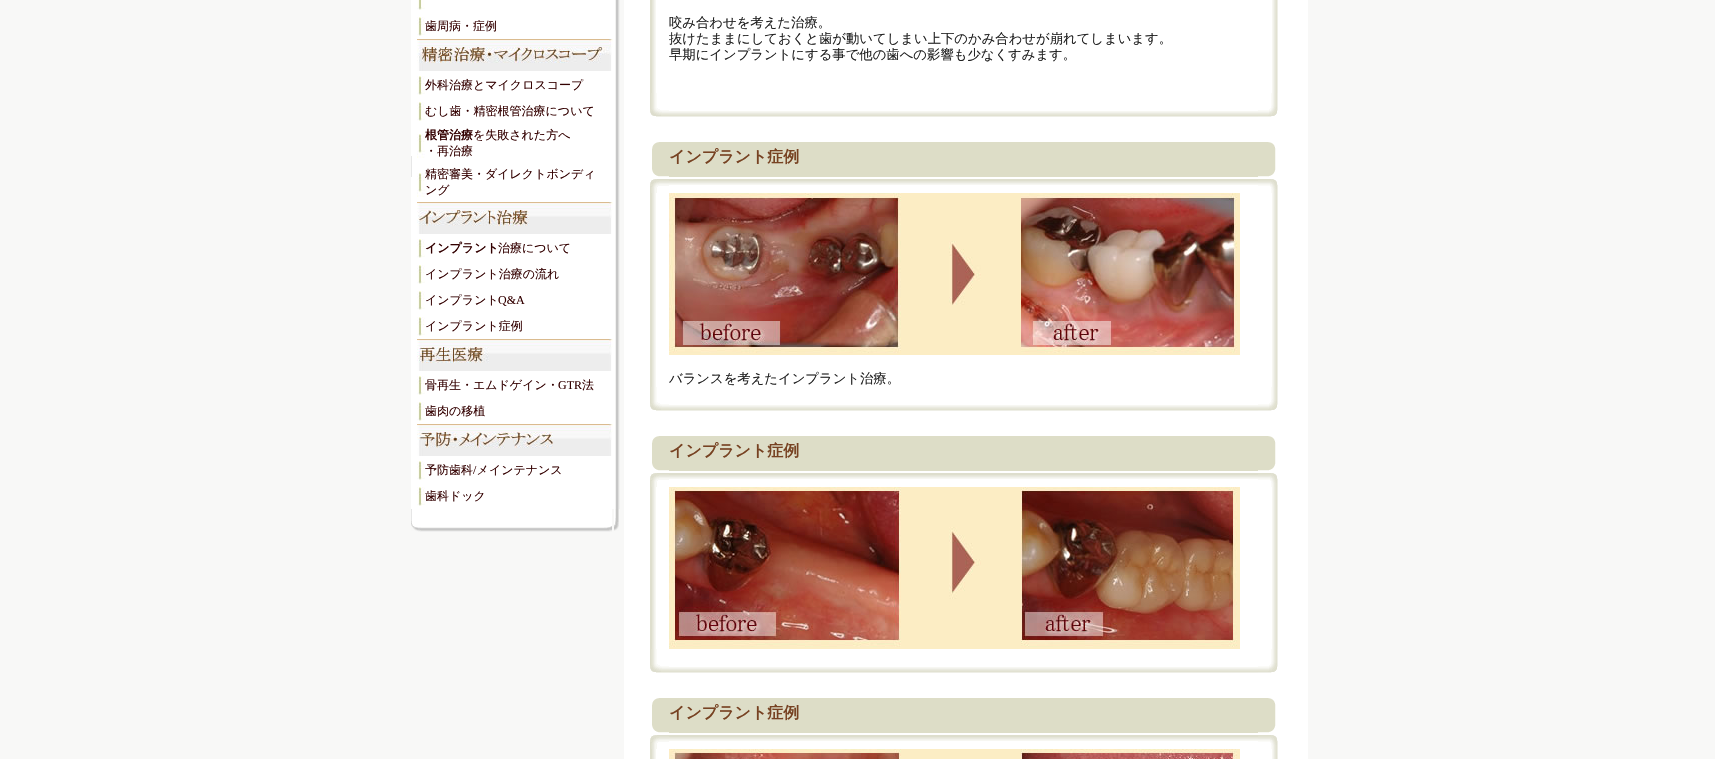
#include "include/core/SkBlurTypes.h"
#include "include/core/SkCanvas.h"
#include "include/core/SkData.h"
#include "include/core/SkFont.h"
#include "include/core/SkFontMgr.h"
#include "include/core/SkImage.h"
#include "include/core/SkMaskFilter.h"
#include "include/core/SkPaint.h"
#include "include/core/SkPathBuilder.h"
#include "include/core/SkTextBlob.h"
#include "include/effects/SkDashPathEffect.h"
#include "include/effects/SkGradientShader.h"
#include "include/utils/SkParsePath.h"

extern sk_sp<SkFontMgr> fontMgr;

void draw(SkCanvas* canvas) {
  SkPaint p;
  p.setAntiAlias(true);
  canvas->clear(SkColorSetRGB(248, 248, 247));
  p.setColor(SK_ColorWHITE);
  canvas->drawRect(SkRect::MakeLTRB(624, 0, 1308, 759), p);
  canvas->drawRect(SkRect::MakeLTRB(411, 0, 614, 509), p);
  p.setColor(SkColorSetRGB(231, 231, 231));
  canvas->drawRect(SkRect::MakeLTRB(411, 156, 412, 177), p);
  canvas->drawImageRect(SkImages::DeferredFromEncodedData(SkData::MakeFromFileName("images/1.png")), SkRect::MakeLTRB(614, 0, 620, 509), SkSamplingOptions());
  canvas->drawImageRect(SkImages::DeferredFromEncodedData(SkData::MakeFromFileName("images/2.png")), SkRect::MakeLTRB(417, 0, 425, 10), SkSamplingOptions());
  canvas->drawImageRect(SkImages::DeferredFromEncodedData(SkData::MakeFromFileName("images/3.png")), SkRect::MakeLTRB(417, 17, 425, 36), SkSamplingOptions());
  canvas->drawImageRect(SkImages::DeferredFromEncodedData(SkData::MakeFromFileName("images/4.png")), SkRect::MakeLTRB(417, 39, 613, 71), SkSamplingOptions());
  canvas->drawImageRect(SkImages::DeferredFromEncodedData(SkData::MakeFromFileName("images/3.png")), SkRect::MakeLTRB(417, 76, 425, 95), SkSamplingOptions());
  canvas->drawImageRect(SkImages::DeferredFromEncodedData(SkData::MakeFromFileName("images/3.png")), SkRect::MakeLTRB(417, 102, 425, 121), SkSamplingOptions());
  canvas->drawImageRect(SkImages::DeferredFromEncodedData(SkData::MakeFromFileName("images/5.png")), SkRect::MakeLTRB(417, 134, 425, 158), SkSamplingOptions());
  canvas->drawImageRect(SkImages::DeferredFromEncodedData(SkData::MakeFromFileName("images/5.png")), SkRect::MakeLTRB(417, 173, 425, 197), SkSamplingOptions());
  canvas->drawImageRect(SkImages::DeferredFromEncodedData(SkData::MakeFromFileName("images/6.png")), SkRect::MakeLTRB(417, 202, 613, 234), SkSamplingOptions());
  canvas->drawImageRect(SkImages::DeferredFromEncodedData(SkData::MakeFromFileName("images/3.png")), SkRect::MakeLTRB(417, 239, 425, 258), SkSamplingOptions());
  canvas->drawImageRect(SkImages::DeferredFromEncodedData(SkData::MakeFromFileName("images/3.png")), SkRect::MakeLTRB(417, 265, 425, 284), SkSamplingOptions());
  canvas->drawImageRect(SkImages::DeferredFromEncodedData(SkData::MakeFromFileName("images/3.png")), SkRect::MakeLTRB(417, 291, 425, 310), SkSamplingOptions());
  canvas->drawImageRect(SkImages::DeferredFromEncodedData(SkData::MakeFromFileName("images/3.png")), SkRect::MakeLTRB(417, 317, 425, 336), SkSamplingOptions());
  canvas->drawImageRect(SkImages::DeferredFromEncodedData(SkData::MakeFromFileName("images/7.png")), SkRect::MakeLTRB(417, 339, 613, 371), SkSamplingOptions());
  canvas->drawImageRect(SkImages::DeferredFromEncodedData(SkData::MakeFromFileName("images/3.png")), SkRect::MakeLTRB(417, 376, 425, 395), SkSamplingOptions());
  canvas->drawImageRect(SkImages::DeferredFromEncodedData(SkData::MakeFromFileName("images/3.png")), SkRect::MakeLTRB(417, 402, 425, 421), SkSamplingOptions());
  canvas->drawImageRect(SkImages::DeferredFromEncodedData(SkData::MakeFromFileName("images/8.png")), SkRect::MakeLTRB(417, 424, 613, 456), SkSamplingOptions());
  canvas->drawImageRect(SkImages::DeferredFromEncodedData(SkData::MakeFromFileName("images/3.png")), SkRect::MakeLTRB(417, 461, 425, 480), SkSamplingOptions());
  canvas->drawImageRect(SkImages::DeferredFromEncodedData(SkData::MakeFromFileName("images/3.png")), SkRect::MakeLTRB(417, 487, 425, 506), SkSamplingOptions());
  canvas->drawImageRect(SkImages::DeferredFromEncodedData(SkData::MakeFromFileName("images/9.png")), SkRect::MakeLTRB(411, 509, 416, 531), SkSamplingOptions());
  canvas->drawImageRect(SkImages::DeferredFromEncodedData(SkData::MakeFromFileName("images/10.png")), SkRect::MakeLTRB(416, 509, 612, 532), SkSamplingOptions());
  canvas->drawImageRect(SkImages::DeferredFromEncodedData(SkData::MakeFromFileName("images/11.png")), SkRect::MakeLTRB(614, 509, 619, 531), SkSamplingOptions());
  canvas->drawImageRect(SkImages::DeferredFromEncodedData(SkData::MakeFromFileName("images/12.png")), SkRect::MakeLTRB(650, 0, 656, 93), SkSamplingOptions());
  canvas->drawImageRect(SkImages::DeferredFromEncodedData(SkData::MakeFromFileName("images/13.png")), SkRect::MakeLTRB(1272, 0, 1278, 93), SkSamplingOptions());
  canvas->drawImageRect(SkImages::DeferredFromEncodedData(SkData::MakeFromFileName("images/14.png")), SkRect::MakeLTRB(650, 93, 669, 117), SkSamplingOptions());
  canvas->drawImageRect(SkImages::DeferredFromEncodedData(SkData::MakeFromFileName("images/15.png")), SkRect::MakeLTRB(669, 111, 1258, 117), SkSamplingOptions());
  canvas->drawImageRect(SkImages::DeferredFromEncodedData(SkData::MakeFromFileName("images/16.png")), SkRect::MakeLTRB(1258, 93, 1278, 117), SkSamplingOptions());
  canvas->drawImageRect(SkImages::DeferredFromEncodedData(SkData::MakeFromFileName("images/17.png")), SkRect::MakeLTRB(652, 142, 669, 177), SkSamplingOptions());
  p.setColor(SkColorSetRGB(221, 221, 199));
  canvas->drawRect(SkRect::MakeLTRB(669, 142, 1258, 177), p);
  canvas->drawImageRect(SkImages::DeferredFromEncodedData(SkData::MakeFromFileName("images/18.png")), SkRect::MakeLTRB(1258, 142, 1276, 177), SkSamplingOptions());
  canvas->drawImageRect(SkImages::DeferredFromEncodedData(SkData::MakeFromFileName("images/19.png")), SkRect::MakeLTRB(650, 179, 669, 193), SkSamplingOptions());
  canvas->drawImageRect(SkImages::DeferredFromEncodedData(SkData::MakeFromFileName("images/20.png")), SkRect::MakeLTRB(669, 179, 1258, 185), SkSamplingOptions());
  canvas->drawImageRect(SkImages::DeferredFromEncodedData(SkData::MakeFromFileName("images/21.png")), SkRect::MakeLTRB(1258, 179, 1278, 193), SkSamplingOptions());
  canvas->drawImageRect(SkImages::DeferredFromEncodedData(SkData::MakeFromFileName("images/22.png")), SkRect::MakeLTRB(650, 193, 656, 387), SkSamplingOptions());
  canvas->drawImageRect(SkImages::DeferredFromEncodedData(SkData::MakeFromFileName("images/23.png")), SkRect::MakeLTRB(669, 193, 1240, 355), SkSamplingOptions());
  canvas->drawImageRect(SkImages::DeferredFromEncodedData(SkData::MakeFromFileName("images/24.png")), SkRect::MakeLTRB(1272, 193, 1278, 387), SkSamplingOptions());
  canvas->drawImageRect(SkImages::DeferredFromEncodedData(SkData::MakeFromFileName("images/14.png")), SkRect::MakeLTRB(650, 387, 669, 411), SkSamplingOptions());
  canvas->drawImageRect(SkImages::DeferredFromEncodedData(SkData::MakeFromFileName("images/15.png")), SkRect::MakeLTRB(669, 405, 1258, 411), SkSamplingOptions());
  canvas->drawImageRect(SkImages::DeferredFromEncodedData(SkData::MakeFromFileName("images/16.png")), SkRect::MakeLTRB(1258, 387, 1278, 411), SkSamplingOptions());
  canvas->drawImageRect(SkImages::DeferredFromEncodedData(SkData::MakeFromFileName("images/17.png")), SkRect::MakeLTRB(652, 436, 669, 471), SkSamplingOptions());
  canvas->drawRect(SkRect::MakeLTRB(669, 436, 1258, 471), p);
  canvas->drawImageRect(SkImages::DeferredFromEncodedData(SkData::MakeFromFileName("images/18.png")), SkRect::MakeLTRB(1258, 436, 1276, 471), SkSamplingOptions());
  canvas->drawImageRect(SkImages::DeferredFromEncodedData(SkData::MakeFromFileName("images/19.png")), SkRect::MakeLTRB(650, 473, 669, 487), SkSamplingOptions());
  canvas->drawImageRect(SkImages::DeferredFromEncodedData(SkData::MakeFromFileName("images/20.png")), SkRect::MakeLTRB(669, 473, 1258, 479), SkSamplingOptions());
  canvas->drawImageRect(SkImages::DeferredFromEncodedData(SkData::MakeFromFileName("images/21.png")), SkRect::MakeLTRB(1258, 473, 1278, 487), SkSamplingOptions());
  canvas->drawImageRect(SkImages::DeferredFromEncodedData(SkData::MakeFromFileName("images/25.png")), SkRect::MakeLTRB(650, 487, 656, 649), SkSamplingOptions());
  canvas->drawImageRect(SkImages::DeferredFromEncodedData(SkData::MakeFromFileName("images/26.png")), SkRect::MakeLTRB(669, 487, 1240, 649), SkSamplingOptions());
  canvas->drawImageRect(SkImages::DeferredFromEncodedData(SkData::MakeFromFileName("images/27.png")), SkRect::MakeLTRB(1272, 487, 1278, 649), SkSamplingOptions());
  canvas->drawImageRect(SkImages::DeferredFromEncodedData(SkData::MakeFromFileName("images/14.png")), SkRect::MakeLTRB(650, 649, 669, 673), SkSamplingOptions());
  canvas->drawImageRect(SkImages::DeferredFromEncodedData(SkData::MakeFromFileName("images/15.png")), SkRect::MakeLTRB(669, 667, 1258, 673), SkSamplingOptions());
  canvas->drawImageRect(SkImages::DeferredFromEncodedData(SkData::MakeFromFileName("images/16.png")), SkRect::MakeLTRB(1258, 649, 1278, 673), SkSamplingOptions());
  canvas->drawImageRect(SkImages::DeferredFromEncodedData(SkData::MakeFromFileName("images/17.png")), SkRect::MakeLTRB(652, 698, 669, 733), SkSamplingOptions());
  canvas->drawRect(SkRect::MakeLTRB(669, 698, 1258, 733), p);
  canvas->drawImageRect(SkImages::DeferredFromEncodedData(SkData::MakeFromFileName("images/18.png")), SkRect::MakeLTRB(1258, 698, 1276, 733), SkSamplingOptions());
  canvas->drawImageRect(SkImages::DeferredFromEncodedData(SkData::MakeFromFileName("images/19.png")), SkRect::MakeLTRB(650, 735, 669, 749), SkSamplingOptions());
  canvas->drawImageRect(SkImages::DeferredFromEncodedData(SkData::MakeFromFileName("images/20.png")), SkRect::MakeLTRB(669, 735, 1258, 741), SkSamplingOptions());
  canvas->drawImageRect(SkImages::DeferredFromEncodedData(SkData::MakeFromFileName("images/21.png")), SkRect::MakeLTRB(1258, 735, 1278, 749), SkSamplingOptions());
  canvas->drawImageRect(SkImages::DeferredFromEncodedData(SkData::MakeFromFileName("images/28.png")), SkRect::MakeLTRB(650, 749, 656, 759), SkSamplingOptions());
  canvas->drawImageRect(SkImages::DeferredFromEncodedData(SkData::MakeFromFileName("images/29.png")), SkRect::MakeLTRB(669, 749, 1240, 759), SkSamplingOptions());
  canvas->drawImageRect(SkImages::DeferredFromEncodedData(SkData::MakeFromFileName("images/30.png")), SkRect::MakeLTRB(1272, 749, 1278, 759), SkSamplingOptions());
  SkFont font1(fontMgr->matchFamilyStyle("WenQuanYi Zen Hei", SkFontStyle(500, SkFontStyle::kNormal_Width, SkFontStyle::kUpright_Slant)), 12);
  font1.setSubpixel(true);
  p.setColor(SkColorSetRGB(51, 0, 0));
  canvas->drawString("歯周病・症例", 425, 30, font1, p);
  canvas->drawString("外科治療とマイクロスコープ", 425, 89, font1, p);
  canvas->drawString("むし歯・精密根管治療について", 425, 115, font1, p);
  SkFont font2(fontMgr->matchFamilyStyle("WenQuanYi Zen Hei", SkFontStyle::Bold()), 12);
  font2.setSubpixel(true);
  canvas->drawString("根管治療", 425, 139, font2, p);
  canvas->drawString("を失敗された方へ", 473, 139, font1, p);
  canvas->drawString("・再治療", 425, 155, font1, p);
  canvas->drawString("精密審美・ダイレクトボンディ", 425, 178, font1, p);
  canvas->drawString("ング", 425, 194, font1, p);
  canvas->drawString("インプラント", 425, 252, font2, p);
  canvas->drawString("治療について", 498, 252, font1, p);
  canvas->drawString("インプラント治療の流れ", 425, 278, font1, p);
  canvas->drawString("インプラント", 425, 304, font1, p);
  SkFont font3(fontMgr->matchFamilyStyle("Liberation Serif", SkFontStyle::Normal()), 12);
  font3.setSubpixel(true);
  canvas->drawString("Q&A", 498, 304, font3, p);
  canvas->drawString("インプラント症例", 425, 330, font1, p);
  canvas->drawString("骨再生・エムドゲイン・", 425, 389, font1, p);
  canvas->drawString("GTR", 558, 389, font3, p);
  canvas->drawString("法", 582, 389, font1, p);
  canvas->drawString("歯肉の移植", 425, 415, font1, p);
  canvas->drawString("予防歯科 メインテナンス", 425, 474, font1, p);
  canvas->drawString("/", 473, 474, font3, p);
  canvas->drawString("歯科ドック", 425, 500, font1, p);
  SkFont font4(fontMgr->matchFamilyStyle("WenQuanYi Zen Hei", SkFontStyle(500, SkFontStyle::kNormal_Width, SkFontStyle::kUpright_Slant)), 13.35f);
  font4.setSubpixel(true);
  p.setColor(SkColorSetRGB(34, 34, 34));
  canvas->drawString("咬み合わせを考えた治療。", 669, 27, font4, p);
  canvas->drawString("抜けたままにしておくと歯が動いてしまい上下のかみ合わせが崩れてしまいます。", 669, 43, font4, p);
  canvas->drawString("早期にインプラントにする事で他の歯への影響も少なくすみます。", 669, 59, font4, p);
  SkFont font5(fontMgr->matchFamilyStyle("WenQuanYi Zen Hei", SkFontStyle::Bold()), 16);
  font5.setSubpixel(true);
  p.setColor(SkColorSetRGB(119, 66, 34));
  canvas->drawString("インプラント症例", 669, 162, font5, p);
  p.setColor(SkColorSetRGB(34, 34, 34));
  canvas->drawString("バランスを考えたインプラント治療。", 669, 383, font4, p);
  p.setColor(SkColorSetRGB(119, 66, 34));
  canvas->drawString("インプラント症例", 669, 456, font5, p);
  canvas->drawString("インプラント症例", 669, 718, font5, p);
}
